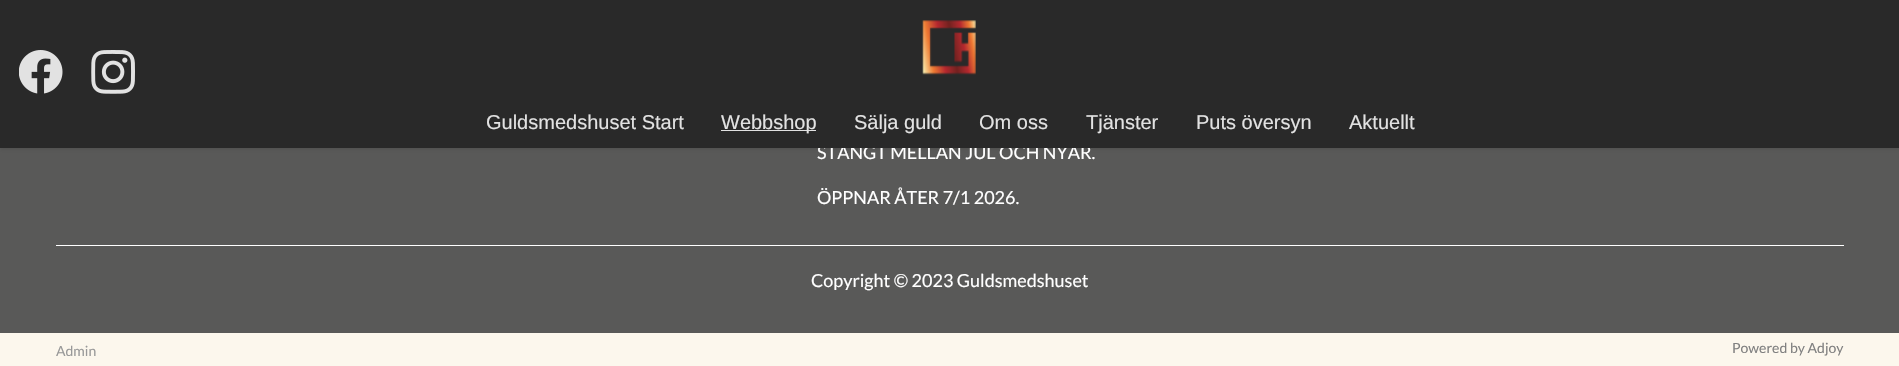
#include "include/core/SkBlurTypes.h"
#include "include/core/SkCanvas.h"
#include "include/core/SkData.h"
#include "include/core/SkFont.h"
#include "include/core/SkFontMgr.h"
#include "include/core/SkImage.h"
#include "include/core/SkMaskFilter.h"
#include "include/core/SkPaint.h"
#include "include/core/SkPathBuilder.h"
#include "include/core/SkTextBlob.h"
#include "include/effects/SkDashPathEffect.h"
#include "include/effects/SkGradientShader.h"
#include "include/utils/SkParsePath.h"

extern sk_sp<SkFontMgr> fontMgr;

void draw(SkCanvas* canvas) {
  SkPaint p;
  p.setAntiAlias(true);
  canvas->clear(SkColorSetRGB(252, 247, 237));
  p.setColor(SkColorSetRGB(89, 89, 88));
  canvas->drawRect(SkRect::MakeLTRB(0, 148, 1899, 333), p);
  p.setColor(SkColorSetARGB(28, 0, 0, 0));
  p.setMaskFilter(SkMaskFilter::MakeBlur(kNormal_SkBlurStyle, 2));
  canvas->drawRect(SkRect::MakeLTRB(0, 1, 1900, 149), p);
  p.setMaskFilter(nullptr);
  p.setColor(SK_ColorWHITE);
  canvas->drawRect(SkRect::MakeLTRB(56, 245, 1844, 246), p);
  SkFont font1(fontMgr->matchFamilyStyle("Lato", SkFontStyle::Normal()), 18);
  font1.setSubpixel(true);
  canvas->drawString("STÄNGT MELLAN JUL OCH NYÅR.", 817, 159, font1, p);
  p.setColor(SkColorSetRGB(41, 41, 41));
  canvas->drawRect(SkRect::MakeLTRB(0, 0, 1899, 148), p);
  canvas->drawImageRect(SkImages::DeferredFromEncodedData(SkData::MakeFromFileName("images/2.png")), SkRect::MakeLTRB(91, 50, 135, 94), SkSamplingOptions());
  canvas->drawImageRect(SkImages::DeferredFromEncodedData(SkData::MakeFromFileName("images/1.png")), SkRect::MakeLTRB(19, 50, 63, 94), SkSamplingOptions());
  canvas->drawImageRect(SkImages::DeferredFromEncodedData(SkData::MakeFromFileName("images/3.png")), SkRect::MakeLTRB(922, 20, 976, 75), SkSamplingOptions());
  SkFont font2(fontMgr->matchFamilyStyle("Liberation Sans", SkFontStyle::Normal()), 20);
  font2.setSubpixel(true);
  p.setColor(SkColorSetRGB(226, 226, 226));
  canvas->drawString("Aktuellt", 1349, 129, font2, p);
  canvas->drawString("Puts översyn", 1196, 129, font2, p);
  canvas->drawString("Tjänster", 1086, 129, font2, p);
  canvas->drawString("Om oss", 979, 129, font2, p);
  canvas->drawString("Sälja guld", 854, 129, font2, p);
  canvas->drawRect(SkRect::MakeLTRB(721, 130, 816, 131), p);
  canvas->drawString("Webbshop", 721, 129, font2, p);
  canvas->drawString("Guldsmedshuset Start", 486, 129, font2, p);
  p.setColor(SK_ColorWHITE);
  canvas->drawString("ÖPPNAR ÅTER 7/1 2026.", 817, 204, font1, p);
  canvas->drawString("Copyright © 2023 Guldsmedshuset", 811, 287, font1, p);
  SkFont font3(fontMgr->matchFamilyStyle("Lato", SkFontStyle::Normal()), 14);
  font3.setSubpixel(true);
  p.setColor(SkColorSetRGB(153, 153, 153));
  canvas->drawString("Admin", 56, 356, font3, p);
  p.setColor(SkColorSetRGB(128, 128, 128));
  canvas->drawString("Powered by Adjoy", 1732, 353, font3, p);
}
